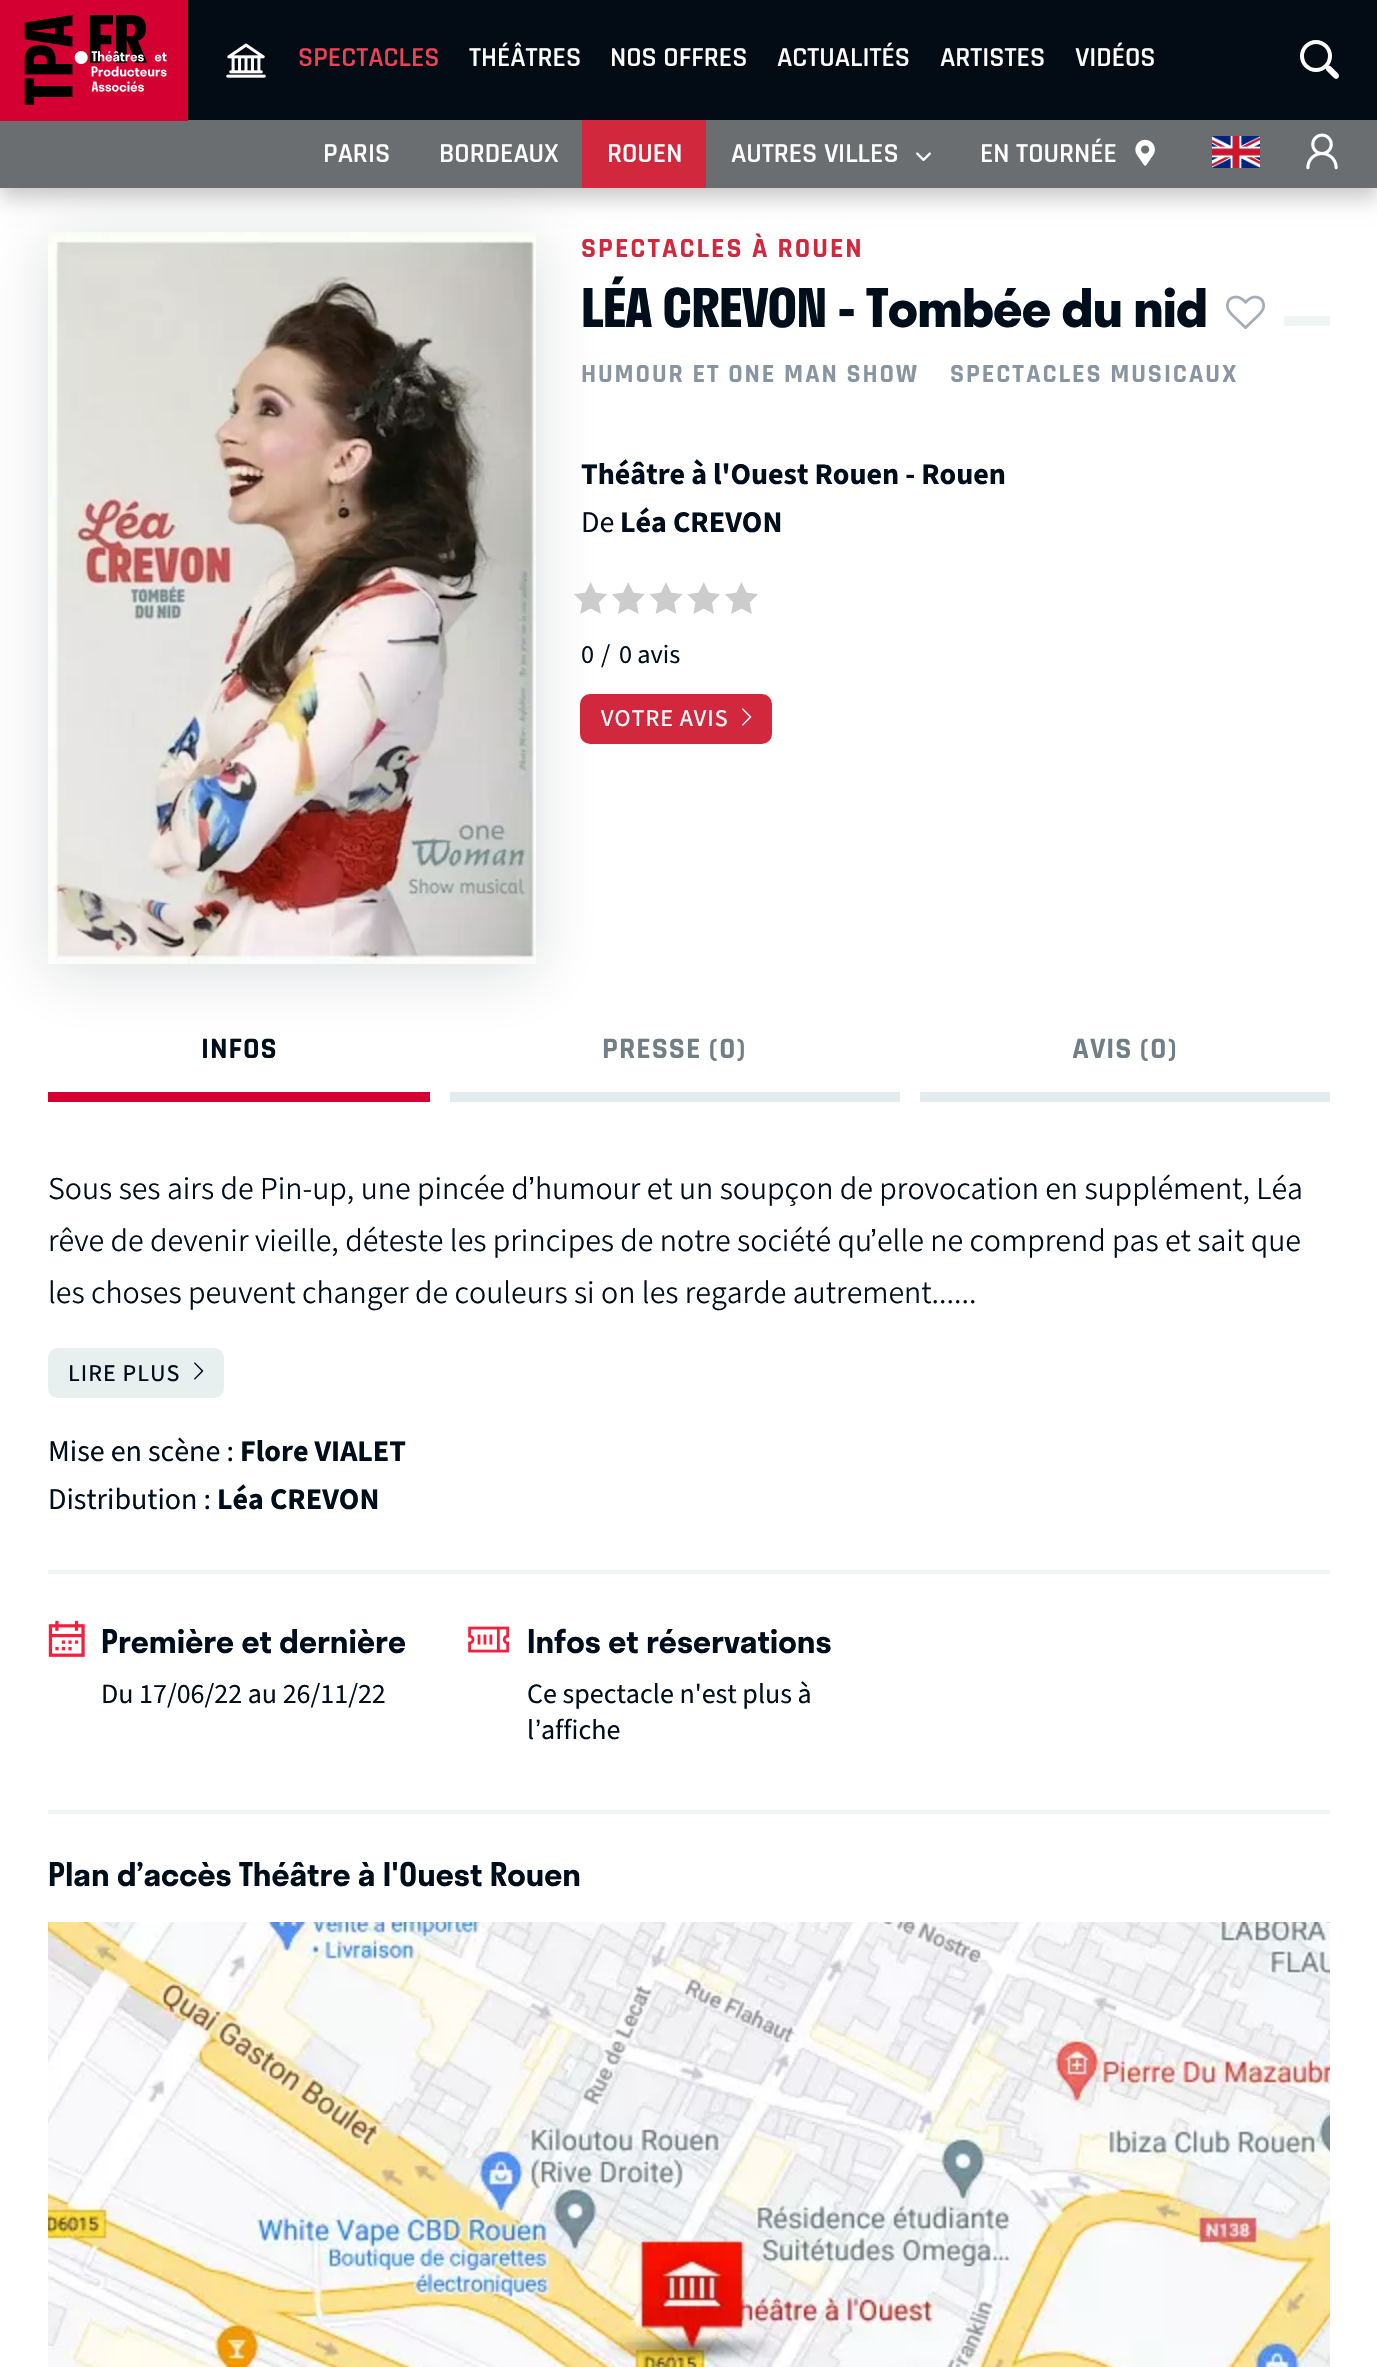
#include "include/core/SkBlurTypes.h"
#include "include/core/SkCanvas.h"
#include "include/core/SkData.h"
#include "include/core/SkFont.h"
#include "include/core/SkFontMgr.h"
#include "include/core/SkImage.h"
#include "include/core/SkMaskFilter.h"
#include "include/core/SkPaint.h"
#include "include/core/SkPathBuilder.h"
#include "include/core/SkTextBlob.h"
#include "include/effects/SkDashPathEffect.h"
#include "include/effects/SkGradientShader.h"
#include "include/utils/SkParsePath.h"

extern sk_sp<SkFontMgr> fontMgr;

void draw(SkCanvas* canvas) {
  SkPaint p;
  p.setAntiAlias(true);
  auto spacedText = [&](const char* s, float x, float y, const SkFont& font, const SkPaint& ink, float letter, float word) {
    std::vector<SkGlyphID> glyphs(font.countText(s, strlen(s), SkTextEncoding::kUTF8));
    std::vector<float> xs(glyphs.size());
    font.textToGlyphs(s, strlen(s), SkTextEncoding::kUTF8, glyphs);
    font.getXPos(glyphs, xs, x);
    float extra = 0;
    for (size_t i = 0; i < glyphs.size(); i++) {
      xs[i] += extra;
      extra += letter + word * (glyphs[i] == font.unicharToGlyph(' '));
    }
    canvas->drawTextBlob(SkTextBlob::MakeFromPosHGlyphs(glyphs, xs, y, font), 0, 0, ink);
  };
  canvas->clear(SK_ColorWHITE);
  p.setColor(SkColorSetARGB(56, 0, 0, 0));
  p.setMaskFilter(SkMaskFilter::MakeBlur(kNormal_SkBlurStyle, 10));
  canvas->drawRect(SkRect::MakeLTRB(0, 10, 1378, 198), p);
  p.setMaskFilter(nullptr);
  p.setColor(SkColorSetARGB(38, 11, 29, 34));
  p.setMaskFilter(SkMaskFilter::MakeBlur(kNormal_SkBlurStyle, 30));
  canvas->drawRect(SkRect::MakeLTRB(48, 240, 536, 972), p);
  p.setMaskFilter(nullptr);
  p.setColor(SkColorSetRGB(107, 110, 112));
  canvas->drawRect(SkRect::MakeLTRB(0, 120, 1377, 188), p);
  canvas->drawImageRect(SkImages::DeferredFromEncodedData(SkData::MakeFromFileName("images/1.png")), SkRect::MakeLTRB(0, 0, 188, 121), SkSamplingOptions());
  p.setColor(SkColorSetRGB(3, 12, 21));
  canvas->drawRect(SkRect::MakeLTRB(188, 0, 1377, 120), p);
  canvas->drawImageRect(SkImages::DeferredFromEncodedData(SkData::MakeFromFileName("images/2.png")), SkRect::MakeLTRB(226, 43, 266, 78), SkSamplingOptions());
  canvas->drawImageRect(SkImages::DeferredFromEncodedData(SkData::MakeFromFileName("images/3.png")), SkRect::MakeLTRB(1212, 136, 1260, 168), SkSamplingOptions());
  p.setColor(SK_ColorWHITE);
  canvas->drawPath(SkPathBuilder().moveTo(1331, 66.5f).lineTo(1338.5f, 74).cubicTo(1339, 75, 1339, 76.5f, 1338.5f, 77.5f).cubicTo(1336, 81, 1333, 77, 1331.5f, 75.5f).lineTo(1327, 71).cubicTo(1324, 68, 1328.5f, 64, 1331, 66.5f).close().detach(), p);
  p.setStyle(SkPaint::kStroke_Style);
  p.setStrokeWidth(4);
  canvas->drawCircle(1316, 56, 14, p);
  canvas->drawImageRect(SkImages::DeferredFromEncodedData(SkData::MakeFromFileName("images/4.png")), SkRect::MakeLTRB(1306, 133, 1338, 170), SkSamplingOptions());
  p.setStyle(SkPaint::kFill_Style);
  p.setColor(SkColorSetRGB(209, 40, 61));
  canvas->drawRect(SkRect::MakeLTRB(582, 120, 706, 188), p);
  canvas->drawImageRect(SkImages::DeferredFromEncodedData(SkData::MakeFromFileName("images/5.png")), SkRect::MakeLTRB(916, 152, 931, 161), SkSamplingOptions());
  canvas->drawImageRect(SkImages::DeferredFromEncodedData(SkData::MakeFromFileName("images/6.png")), SkRect::MakeLTRB(1135, 139, 1155, 166), SkSamplingOptions());
  canvas->drawImageRect(SkImages::DeferredFromEncodedData(SkData::MakeFromFileName("images/7.png")), SkRect::MakeLTRB(48, 232, 536, 964), SkSamplingOptions());
  canvas->drawImageRect(SkImages::DeferredFromEncodedData(SkData::MakeFromFileName("images/8.png")), SkRect::MakeLTRB(1226, 295, 1265, 329), SkSamplingOptions());
  p.setColor(SkColorSetRGB(239, 244, 244));
  canvas->drawRect(SkRect::MakeLTRB(1284, 316, 1330, 326), p);
  canvas->drawImageRect(SkImages::DeferredFromEncodedData(SkData::MakeFromFileName("images/9.png")), SkRect::MakeLTRB(574, 582, 758, 614), SkSamplingOptions());
  p.setColor(SkColorSetRGB(209, 40, 61));
  canvas->drawRoundRect(SkRect::MakeLTRB(580, 694, 772, 744), 10, 10, p);
  canvas->drawImageRect(SkImages::DeferredFromEncodedData(SkData::MakeFromFileName("images/10.png")), SkRect::MakeLTRB(742, 708, 752, 726), SkSamplingOptions());
  p.setColor(SkColorSetRGB(213, 0, 50));
  canvas->drawRect(SkRect::MakeLTRB(48, 1092, 430, 1102), p);
  p.setColor(SkColorSetRGB(227, 236, 236));
  canvas->drawRect(SkRect::MakeLTRB(450, 1092, 900, 1102), p);
  canvas->drawRect(SkRect::MakeLTRB(920, 1092, 1330, 1102), p);
  p.setColor(SkColorSetRGB(232, 239, 239));
  canvas->drawRoundRect(SkRect::MakeLTRB(48, 1348, 224, 1398), 10, 10, p);
  canvas->drawImageRect(SkImages::DeferredFromEncodedData(SkData::MakeFromFileName("images/11.png")), SkRect::MakeLTRB(194, 1362, 204, 1380), SkSamplingOptions());
  p.setColor(SkColorSetRGB(239, 244, 244));
  canvas->drawRect(SkRect::MakeLTRB(48, 1570, 1330, 1574), p);
  canvas->drawImageRect(SkImages::DeferredFromEncodedData(SkData::MakeFromFileName("images/12.png")), SkRect::MakeLTRB(48, 1620, 85, 1657), SkSamplingOptions());
  canvas->drawImageRect(SkImages::DeferredFromEncodedData(SkData::MakeFromFileName("images/13.png")), SkRect::MakeLTRB(468, 1626, 510, 1653), SkSamplingOptions());
  canvas->drawRect(SkRect::MakeLTRB(48, 1810, 1330, 1814), p);
  canvas->drawImageRect(SkImages::DeferredFromEncodedData(SkData::MakeFromFileName("images/14.png")), SkRect::MakeLTRB(48, 1922, 1330, 2367), SkSamplingOptions());
  SkFont font1(fontMgr->matchFamilyStyle("Rajdhani", SkFontStyle(600, SkFontStyle::kNormal_Width, SkFontStyle::kUpright_Slant)), 27.75f);
  font1.setSubpixel(true);
  p.setColor(SkColorSetRGB(234, 67, 87));
  canvas->drawString("SPECTACLES", 298, 66, font1, p);
  p.setColor(SK_ColorWHITE);
  canvas->drawString("THÉÂTRES", 469, 66, font1, p);
  canvas->drawString("NOS OFFRES", 610, 66, font1, p);
  canvas->drawString("ACTUALITÉS", 777, 66, font1, p);
  canvas->drawString("ARTISTES", 940, 66, font1, p);
  canvas->drawString("VIDÉOS", 1075, 66, font1, p);
  canvas->drawString("PARIS", 323, 162, font1, p);
  canvas->drawString("BORDEAUX", 439, 162, font1, p);
  canvas->drawString("ROUEN", 607, 162, font1, p);
  canvas->drawString("AUTRES VILLES", 731, 162, font1, p);
  canvas->drawString("EN TOURNÉE", 980, 162, font1, p);
  SkFont font2(fontMgr->matchFamilyStyle("Rajdhani", SkFontStyle::Bold()), 28);
  font2.setSubpixel(true);
  p.setColor(SkColorSetRGB(209, 40, 61));
  spacedText("SPECTACLES À ROUEN", 581, 257, font2, p, 2, 0);
  SkFont font3(fontMgr->matchFamilyStyle("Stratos", SkFontStyle::Bold()), 52);
  font3.setSubpixel(true);
  p.setColor(SkColorSetRGB(0, 14, 28));
  spacedText("LÉA CREVON - Tombée du nid", 581, 327, font3, p, -0.8f, 0);
  SkFont font4(fontMgr->matchFamilyStyle("Rajdhani", SkFontStyle::Bold()), 26.25f);
  font4.setSubpixel(true);
  p.setColor(SkColorSetRGB(138, 149, 162));
  spacedText("HUMOUR ET ONE MAN SHOW", 581, 382, font4, p, 1.9f, 0);
  spacedText("SPECTACLES MUSICAUX", 950, 382, font4, p, 1.9f, 0);
  SkFont font5(fontMgr->matchFamilyStyle("Source Sans 3", SkFontStyle::Bold()), 30);
  font5.setSubpixel(true);
  p.setColor(SkColorSetRGB(0, 14, 28));
  canvas->drawString("Théâtre à l'Ouest Rouen - Rouen", 581, 484, font5, p);
  SkFont font6(fontMgr->matchFamilyStyle("Source Sans 3", SkFontStyle::Normal()), 30);
  font6.setSubpixel(true);
  canvas->drawString("De", 581, 532, font6, p);
  canvas->drawString("Léa CREVON", 620, 532, font5, p);
  SkFont font7(fontMgr->matchFamilyStyle("Source Sans 3", SkFontStyle::Normal()), 26.25f);
  font7.setSubpixel(true);
  canvas->drawString("0", 581, 663, font7, p);
  canvas->drawString("/", 601, 663, font7, p);
  canvas->drawString("0 avis", 619, 663, font7, p);
  SkFont font8(fontMgr->matchFamilyStyle("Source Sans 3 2", SkFontStyle::Normal()), 24);
  font8.setSubpixel(true);
  p.setColor(SK_ColorWHITE);
  spacedText("VOTRE AVIS", 601, 726, font8, p, 1, 0);
  SkFont font9(fontMgr->matchFamilyStyle("Rajdhani", SkFontStyle::Bold()), 30);
  font9.setSubpixel(true);
  p.setColor(SkColorSetRGB(0, 14, 28));
  spacedText("INFOS", 201, 1058, font9, p, 1, 0);
  p.setColor(SkColorSetRGB(115, 127, 134));
  spacedText("PRESSE (0)", 602, 1058, font9, p, 1, 0);
  spacedText("AVIS (0)", 1072, 1058, font9, p, 1, 0);
  SkFont font10(fontMgr->matchFamilyStyle("Source Sans 3", SkFontStyle(300, SkFontStyle::kNormal_Width, SkFontStyle::kUpright_Slant)), 31.9f);
  font10.setSubpixel(true);
  p.setColor(SkColorSetRGB(0, 14, 28));
  canvas->drawString("Sous ses airs de Pin-up, une pincée d", 48, 1199, font10, p);
  SkFont font11(fontMgr->matchFamilyStyle("Liberation Sans", SkFontStyle::Normal()), 31.9f);
  font11.setSubpixel(true);
  canvas->drawString("’", 528, 1199, font11, p);
  canvas->drawString("humour et un soupçon de provocation en supplément, Léa", 535, 1199, font10, p);
  canvas->drawString("rêve de devenir vieille, déteste les principes de notre société qu", 48, 1251, font10, p);
  canvas->drawString("’", 870, 1251, font11, p);
  canvas->drawString("elle ne comprend pas et sait que", 877, 1251, font10, p);
  canvas->drawString("les choses peuvent changer de couleurs si on les regarde autrement......", 48, 1303, font10, p);
  spacedText("LIRE PLUS", 68, 1381, font8, p, 1, 0);
  canvas->drawString("Mise en scène :", 48, 1461, font6, p);
  canvas->drawString("Flore VIALET", 240, 1461, font5, p);
  canvas->drawString("Distribution :", 48, 1509, font6, p);
  canvas->drawString("Léa CREVON", 217, 1509, font5, p);
  SkFont font12(fontMgr->matchFamilyStyle("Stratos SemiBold", SkFontStyle(600, SkFontStyle::kNormal_Width, SkFontStyle::kUpright_Slant)), 31.9f);
  font12.setSubpixel(true);
  canvas->drawString("Première et dernière", 101, 1653, font12, p);
  SkFont font13(fontMgr->matchFamilyStyle("Source Sans 3", SkFontStyle::Normal()), 28);
  font13.setSubpixel(true);
  canvas->drawString("Du 17/06/22 au 26/11/22", 101, 1703, font13, p);
  canvas->drawString("Infos et réservations", 527, 1653, font12, p);
  canvas->drawString("Ce spectacle n'est plus à", 527, 1703, font13, p);
  canvas->drawString("l", 527, 1739, font13, p);
  SkFont font14(fontMgr->matchFamilyStyle("Liberation Sans", SkFontStyle::Normal()), 28);
  font14.setSubpixel(true);
  canvas->drawString("’", 535, 1739, font14, p);
  canvas->drawString("affiche", 541, 1739, font13, p);
  canvas->drawString("Plan d’accès Théâtre à l'Ouest Rouen", 48, 1886, font12, p);
}
